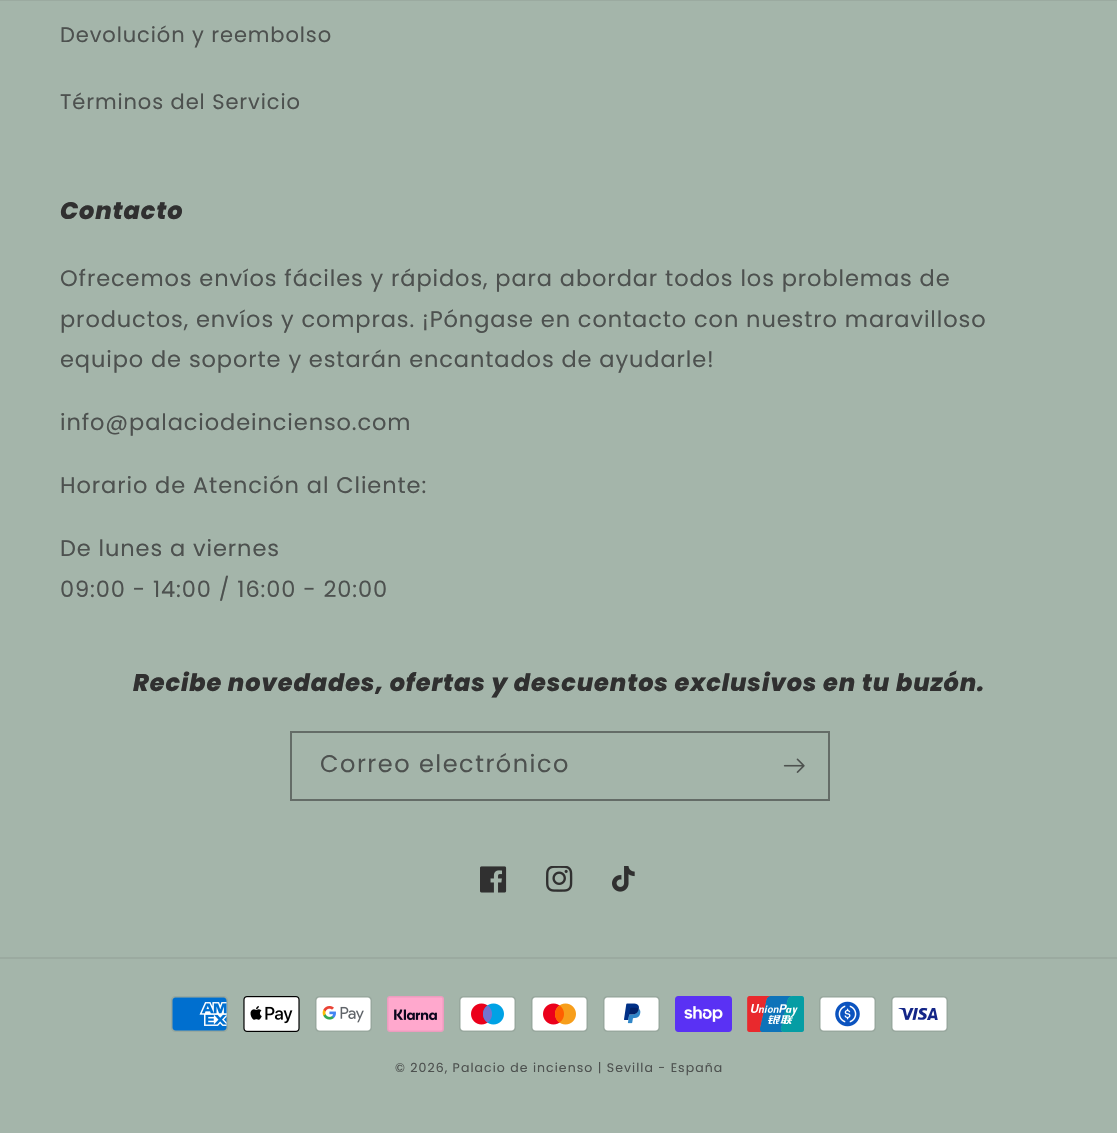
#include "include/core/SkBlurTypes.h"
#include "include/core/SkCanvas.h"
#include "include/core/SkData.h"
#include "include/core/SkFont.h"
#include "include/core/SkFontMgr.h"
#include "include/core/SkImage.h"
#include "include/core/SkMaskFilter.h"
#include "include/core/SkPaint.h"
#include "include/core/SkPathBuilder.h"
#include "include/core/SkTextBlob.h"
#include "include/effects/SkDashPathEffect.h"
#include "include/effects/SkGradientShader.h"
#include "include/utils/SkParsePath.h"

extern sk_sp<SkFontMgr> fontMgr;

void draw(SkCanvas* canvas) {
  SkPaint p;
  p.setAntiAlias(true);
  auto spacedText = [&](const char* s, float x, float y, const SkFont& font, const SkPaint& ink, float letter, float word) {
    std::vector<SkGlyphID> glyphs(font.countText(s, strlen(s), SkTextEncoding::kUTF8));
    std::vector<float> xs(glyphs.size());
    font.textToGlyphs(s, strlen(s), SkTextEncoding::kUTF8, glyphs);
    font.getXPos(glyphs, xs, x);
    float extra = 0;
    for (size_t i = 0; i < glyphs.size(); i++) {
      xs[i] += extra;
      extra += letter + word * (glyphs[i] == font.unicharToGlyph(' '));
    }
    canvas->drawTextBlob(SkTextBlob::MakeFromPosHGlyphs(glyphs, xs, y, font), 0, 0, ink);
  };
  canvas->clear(SkColorSetRGB(164, 181, 170));
  p.setColor(SkColorSetRGB(155, 170, 160));
  canvas->drawRect(SkRect::MakeLTRB(0, 0, 1117, 1), p);
  p.setStyle(SkPaint::kStroke_Style);
  p.setStrokeWidth(2);
  p.setColor(SkColorSetRGB(100, 108, 103));
  canvas->drawRect(SkRect::MakeLTRB(291, 732, 829, 800), p);
  canvas->drawImageRect(SkImages::DeferredFromEncodedData(SkData::MakeFromFileName("images/1.png")), SkRect::MakeLTRB(783, 758, 805, 773), SkSamplingOptions());
  canvas->drawImageRect(SkImages::DeferredFromEncodedData(SkData::MakeFromFileName("images/2.png")), SkRect::MakeLTRB(480, 866, 507, 893), SkSamplingOptions());
  canvas->drawImageRect(SkImages::DeferredFromEncodedData(SkData::MakeFromFileName("images/3.png")), SkRect::MakeLTRB(546, 866, 573, 892), SkSamplingOptions());
  canvas->drawImageRect(SkImages::DeferredFromEncodedData(SkData::MakeFromFileName("images/4.png")), SkRect::MakeLTRB(612, 866, 635, 892), SkSamplingOptions());
  p.setStyle(SkPaint::kFill_Style);
  p.setColor(SkColorSetRGB(155, 170, 160));
  canvas->drawRect(SkRect::MakeLTRB(0, 957, 1117, 959), p);
  canvas->drawImageRect(SkImages::DeferredFromEncodedData(SkData::MakeFromFileName("images/5.png")), SkRect::MakeLTRB(171, 996, 228, 1032), SkSamplingOptions());
  canvas->drawImageRect(SkImages::DeferredFromEncodedData(SkData::MakeFromFileName("images/6.png")), SkRect::MakeLTRB(243, 996, 300, 1032), SkSamplingOptions());
  canvas->drawImageRect(SkImages::DeferredFromEncodedData(SkData::MakeFromFileName("images/7.png")), SkRect::MakeLTRB(315, 996, 372, 1032), SkSamplingOptions());
  canvas->drawImageRect(SkImages::DeferredFromEncodedData(SkData::MakeFromFileName("images/8.png")), SkRect::MakeLTRB(387, 996, 444, 1032), SkSamplingOptions());
  canvas->drawImageRect(SkImages::DeferredFromEncodedData(SkData::MakeFromFileName("images/9.png")), SkRect::MakeLTRB(459, 996, 516, 1032), SkSamplingOptions());
  canvas->drawImageRect(SkImages::DeferredFromEncodedData(SkData::MakeFromFileName("images/10.png")), SkRect::MakeLTRB(531, 996, 588, 1032), SkSamplingOptions());
  canvas->drawImageRect(SkImages::DeferredFromEncodedData(SkData::MakeFromFileName("images/11.png")), SkRect::MakeLTRB(603, 996, 660, 1032), SkSamplingOptions());
  canvas->drawImageRect(SkImages::DeferredFromEncodedData(SkData::MakeFromFileName("images/12.png")), SkRect::MakeLTRB(675, 996, 732, 1032), SkSamplingOptions());
  canvas->drawImageRect(SkImages::DeferredFromEncodedData(SkData::MakeFromFileName("images/13.png")), SkRect::MakeLTRB(747, 996, 804, 1032), SkSamplingOptions());
  canvas->drawImageRect(SkImages::DeferredFromEncodedData(SkData::MakeFromFileName("images/14.png")), SkRect::MakeLTRB(819, 996, 876, 1032), SkSamplingOptions());
  canvas->drawImageRect(SkImages::DeferredFromEncodedData(SkData::MakeFromFileName("images/15.png")), SkRect::MakeLTRB(891, 996, 948, 1032), SkSamplingOptions());
  SkFont font1(fontMgr->matchFamilyStyle("Poppins", SkFontStyle::Normal()), 21);
  font1.setSubpixel(true);
  p.setColor(SkColorSetRGB(77, 81, 79));
  spacedText("Devolución y reembolso", 60, 42, font1, p, 0.9f, 0);
  spacedText("Términos del Servicio", 60, 109, font1, p, 0.9f, 0);
  SkFont font2(fontMgr->matchFamilyStyle("Poppins", SkFontStyle(800, SkFontStyle::kNormal_Width, SkFontStyle::kItalic_Slant)), 24);
  font2.setSubpixel(true);
  p.setColor(SkColorSetRGB(48, 48, 48));
  spacedText("Contacto", 60, 219, font2, p, 0.9f, 0);
  SkFont font3(fontMgr->matchFamilyStyle("Poppins", SkFontStyle::Normal()), 22.5f);
  font3.setSubpixel(true);
  p.setColor(SkColorSetRGB(77, 81, 79));
  spacedText("Ofrecemos envíos fáciles y rápidos, para abordar todos los problemas de", 60, 286, font3, p, 0.9f, 0);
  spacedText("productos, envíos y compras. ¡Póngase en contacto con nuestro maravilloso", 60, 327, font3, p, 0.9f, 0);
  spacedText("equipo de soporte y estarán encantados de ayudarle!", 60, 367, font3, p, 0.9f, 0);
  spacedText("info@palaciodeincienso.com", 60, 430, font3, p, 0.9f, 0);
  spacedText("Horario de Atención al Cliente:", 60, 493, font3, p, 0.9f, 0);
  spacedText("De lunes a viernes", 60, 556, font3, p, 0.9f, 0);
  spacedText("09:00 - 14:00 / 16:00 - 20:00", 60, 597, font3, p, 0.9f, 0);
  p.setColor(SkColorSetRGB(48, 48, 48));
  spacedText("Recibe novedades, ofertas y descuentos exclusivos en tu buzón.", 133, 691, font2, p, 0.9f, 0);
  SkFont font4(fontMgr->matchFamilyStyle("Poppins", SkFontStyle::Normal()), 24);
  font4.setSubpixel(true);
  p.setColor(SkColorSetRGB(77, 81, 79));
  spacedText("Correo electrónico", 320, 772, font4, p, 1.5f, 0);
  SkFont font5(fontMgr->matchFamilyStyle("Poppins", SkFontStyle::Normal()), 12.5f);
  font5.setSubpixel(true);
  spacedText("© 2026, Palacio de incienso | Sevilla - España", 395, 1072, font5, p, 1.05f, 0);
}
